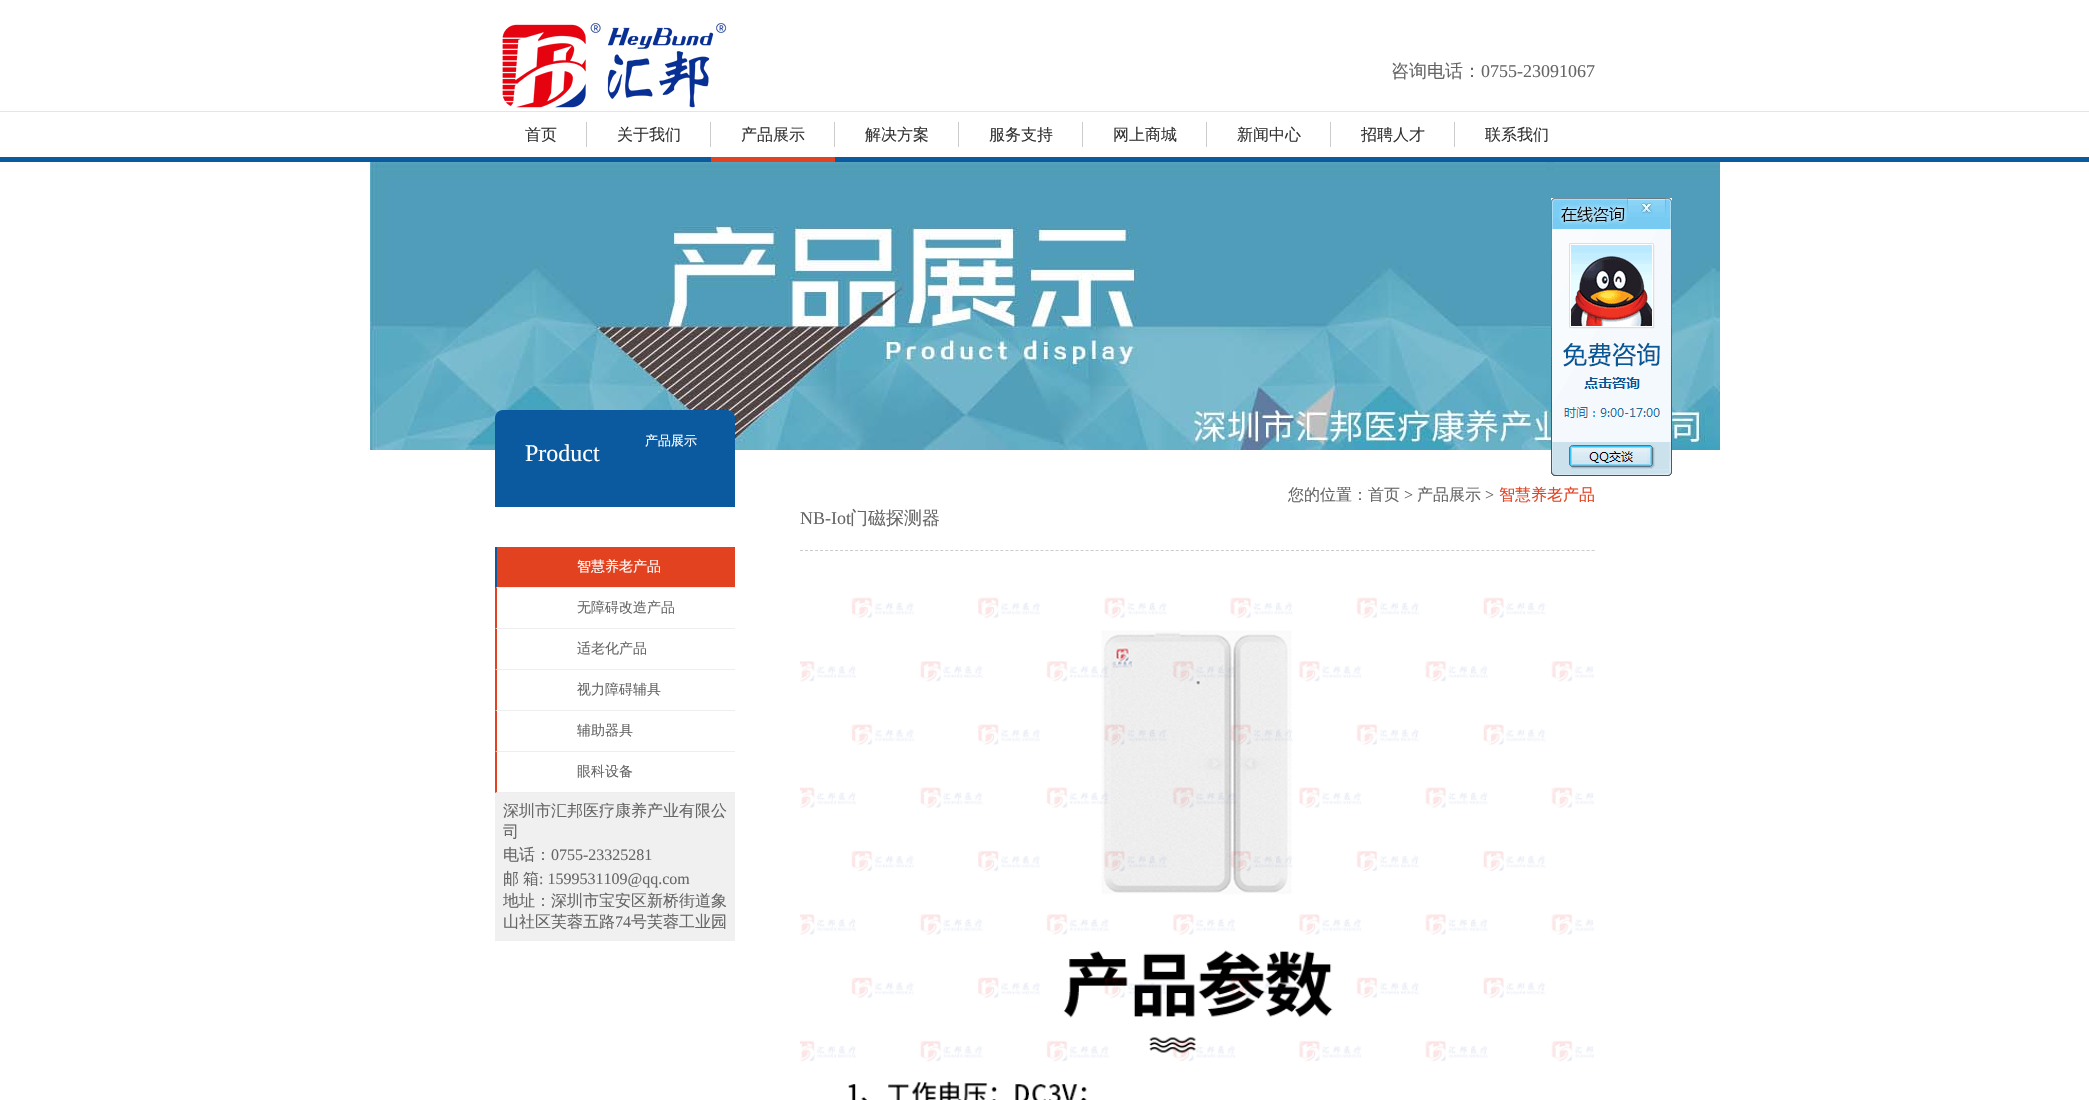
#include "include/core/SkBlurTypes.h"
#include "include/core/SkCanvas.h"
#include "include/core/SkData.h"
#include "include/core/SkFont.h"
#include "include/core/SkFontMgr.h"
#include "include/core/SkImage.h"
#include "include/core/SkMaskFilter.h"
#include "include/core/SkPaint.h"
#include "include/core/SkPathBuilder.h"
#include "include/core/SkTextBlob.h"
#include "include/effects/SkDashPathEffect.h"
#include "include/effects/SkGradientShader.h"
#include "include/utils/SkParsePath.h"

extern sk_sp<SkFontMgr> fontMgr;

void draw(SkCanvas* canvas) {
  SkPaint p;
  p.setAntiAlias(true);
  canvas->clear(SK_ColorWHITE);
  p.setColor(SkColorSetRGB(229, 229, 229));
  canvas->drawRect(SkRect::MakeLTRB(0, 111, 2089, 112), p);
  canvas->drawImageRect(SkImages::DeferredFromEncodedData(SkData::MakeFromFileName("images/1.png")), SkRect::MakeLTRB(502, 23, 727, 108), SkSamplingOptions());
  p.setColor(SkColorSetRGB(204, 204, 204));
  canvas->drawRect(SkRect::MakeLTRB(586, 122, 587, 147), p);
  canvas->drawRect(SkRect::MakeLTRB(710, 122, 711, 147), p);
  canvas->drawRect(SkRect::MakeLTRB(834, 122, 835, 147), p);
  p.setColor(SkColorSetRGB(11, 90, 159));
  canvas->drawRect(SkRect::MakeLTRB(0, 157, 2089, 162), p);
  p.setColor(SkColorSetRGB(226, 66, 32));
  canvas->drawRect(SkRect::MakeLTRB(711, 157, 835, 162), p);
  p.setColor(SkColorSetRGB(204, 204, 204));
  canvas->drawRect(SkRect::MakeLTRB(958, 122, 959, 147), p);
  canvas->drawRect(SkRect::MakeLTRB(1082, 122, 1083, 147), p);
  canvas->drawRect(SkRect::MakeLTRB(1206, 122, 1207, 147), p);
  canvas->drawRect(SkRect::MakeLTRB(1330, 122, 1331, 147), p);
  canvas->drawRect(SkRect::MakeLTRB(1454, 122, 1455, 147), p);
  canvas->drawImageRect(SkImages::DeferredFromEncodedData(SkData::MakeFromFileName("images/2.png")), SkRect::MakeLTRB(370, 162, 1720, 450), SkSamplingOptions());
  canvas->drawImageRect(SkImages::DeferredFromEncodedData(SkData::MakeFromFileName("images/3.png")), SkRect::MakeLTRB(1551, 198, 1672, 442), SkSamplingOptions());
  canvas->drawImageRect(SkImages::DeferredFromEncodedData(SkData::MakeFromFileName("images/4.png")), SkRect::MakeLTRB(1551, 442, 1672, 470), SkSamplingOptions());
  canvas->drawImageRect(SkImages::DeferredFromEncodedData(SkData::MakeFromFileName("images/5.png")), SkRect::MakeLTRB(1551, 470, 1672, 476), SkSamplingOptions());
  canvas->drawImageRect(SkImages::DeferredFromEncodedData(SkData::MakeFromFileName("images/6.png")), SkRect::MakeLTRB(495, 410, 735, 507), SkSamplingOptions());
  p.setColor(SkColorSetRGB(226, 66, 32));
  canvas->drawRect(SkRect::MakeLTRB(495, 547, 735, 588), p);
  p.setColor(SkColorSetRGB(238, 238, 238));
  canvas->drawPath(SkPathBuilder().moveTo(735, 588).lineTo(495, 588).lineTo(497, 587).lineTo(735, 587).close().detach(), p);
  p.setColor(SkColorSetRGB(11, 90, 159));
  canvas->drawPath(SkPathBuilder().moveTo(495, 588).lineTo(495, 547).lineTo(497, 547).lineTo(497, 587).close().detach(), p);
  p.setColor(SkColorSetRGB(238, 238, 238));
  canvas->drawPath(SkPathBuilder().moveTo(735, 629).lineTo(495, 629).lineTo(497, 628).lineTo(735, 628).close().detach(), p);
  p.setColor(SkColorSetRGB(226, 66, 32));
  canvas->drawPath(SkPathBuilder().moveTo(495, 629).lineTo(495, 588).lineTo(497, 588).lineTo(497, 628).close().detach(), p);
  p.setColor(SkColorSetRGB(238, 238, 238));
  canvas->drawPath(SkPathBuilder().moveTo(735, 670).lineTo(495, 670).lineTo(497, 669).lineTo(735, 669).close().detach(), p);
  p.setColor(SkColorSetRGB(226, 66, 32));
  canvas->drawPath(SkPathBuilder().moveTo(495, 670).lineTo(495, 629).lineTo(497, 629).lineTo(497, 669).close().detach(), p);
  p.setColor(SkColorSetRGB(238, 238, 238));
  canvas->drawPath(SkPathBuilder().moveTo(735, 711).lineTo(495, 711).lineTo(497, 710).lineTo(735, 710).close().detach(), p);
  p.setColor(SkColorSetRGB(226, 66, 32));
  canvas->drawPath(SkPathBuilder().moveTo(495, 711).lineTo(495, 670).lineTo(497, 670).lineTo(497, 710).close().detach(), p);
  p.setColor(SkColorSetRGB(238, 238, 238));
  canvas->drawPath(SkPathBuilder().moveTo(735, 752).lineTo(495, 752).lineTo(497, 751).lineTo(735, 751).close().detach(), p);
  p.setColor(SkColorSetRGB(226, 66, 32));
  canvas->drawPath(SkPathBuilder().moveTo(495, 752).lineTo(495, 711).lineTo(497, 711).lineTo(497, 751).close().detach(), p);
  p.setColor(SkColorSetRGB(238, 238, 238));
  canvas->drawPath(SkPathBuilder().moveTo(735, 793).lineTo(495, 793).lineTo(497, 792).lineTo(735, 792).close().detach(), p);
  p.setColor(SkColorSetRGB(226, 66, 32));
  canvas->drawPath(SkPathBuilder().moveTo(495, 793).lineTo(495, 752).lineTo(497, 752).lineTo(497, 792).close().detach(), p);
  p.setColor(SkColorSetRGB(240, 240, 240));
  canvas->drawRect(SkRect::MakeLTRB(495, 793, 735, 941), p);
  p.setStyle(SkPaint::kStroke_Style);
  p.setStrokeWidth(1);
  p.setColor(SkColorSetRGB(204, 204, 204));
  p.setPathEffect(SkDashPathEffect::Make({{3, 2.01f}}, 0));
  canvas->drawPath(SkPathBuilder().moveTo(800, 550.5f).lineTo(1595, 550.5f).detach(), p);
  p.setPathEffect(nullptr);
  canvas->drawImageRect(SkImages::DeferredFromEncodedData(SkData::MakeFromFileName("images/7.png")), SkRect::MakeLTRB(800, 597, 1594, 1100), SkSamplingOptions());
  SkFont font1(fontMgr->matchFamilyStyle("WenQuanYi Zen Hei", SkFontStyle(500, SkFontStyle::kNormal_Width, SkFontStyle::kUpright_Slant)), 18);
  font1.setSubpixel(true);
  p.setStyle(SkPaint::kFill_Style);
  p.setColor(SkColorSetRGB(102, 102, 102));
  canvas->drawString("咨询电话：", 1391, 77, font1, p);
  SkFont font2(fontMgr->matchFamilyStyle("Liberation Serif", SkFontStyle::Normal()), 18);
  font2.setSubpixel(true);
  canvas->drawString("0755-23091067", 1481, 77, font2, p);
  SkFont font3(fontMgr->matchFamilyStyle("WenQuanYi Zen Hei", SkFontStyle(500, SkFontStyle::kNormal_Width, SkFontStyle::kUpright_Slant)), 16);
  font3.setSubpixel(true);
  p.setColor(SkColorSetRGB(51, 51, 51));
  canvas->drawString("首页", 525, 140, font3, p);
  canvas->drawString("关于我们", 617, 140, font3, p);
  canvas->drawString("产品展示", 741, 140, font3, p);
  canvas->drawString("解决方案", 865, 140, font3, p);
  canvas->drawString("服务支持", 989, 140, font3, p);
  canvas->drawString("网上商城", 1113, 140, font3, p);
  canvas->drawString("新闻中心", 1237, 140, font3, p);
  canvas->drawString("招聘人才", 1361, 140, font3, p);
  canvas->drawString("联系我们", 1485, 140, font3, p);
  SkFont font4(fontMgr->matchFamilyStyle("WenQuanYi Zen Hei", SkFontStyle(500, SkFontStyle::kNormal_Width, SkFontStyle::kUpright_Slant)), 13);
  font4.setSubpixel(true);
  p.setColor(SK_ColorWHITE);
  canvas->drawString("产品展示", 645, 445, font4, p);
  SkFont font5(fontMgr->matchFamilyStyle("Liberation Serif", SkFontStyle::Normal()), 24);
  font5.setSubpixel(true);
  canvas->drawString("Product", 525, 461, font5, p);
  SkFont font6(fontMgr->matchFamilyStyle("WenQuanYi Zen Hei", SkFontStyle(500, SkFontStyle::kNormal_Width, SkFontStyle::kUpright_Slant)), 14);
  font6.setSubpixel(true);
  canvas->drawString("智慧养老产品", 577, 571, font6, p);
  p.setColor(SkColorSetRGB(102, 102, 102));
  canvas->drawString("无障碍改造产品", 577, 612, font6, p);
  canvas->drawString("适老化产品", 577, 653, font6, p);
  canvas->drawString("视力障碍辅具", 577, 694, font6, p);
  canvas->drawString("辅助器具", 577, 735, font6, p);
  canvas->drawString("眼科设备", 577, 776, font6, p);
  canvas->drawString("深圳市汇邦医疗康养产业有限公", 503, 816, font3, p);
  canvas->drawString("司", 503, 837, font3, p);
  canvas->drawString("电话：", 503, 860, font3, p);
  SkFont font7(fontMgr->matchFamilyStyle("Liberation Serif", SkFontStyle::Normal()), 16);
  font7.setSubpixel(true);
  canvas->drawString("0755-23325281", 551, 860, font7, p);
  canvas->drawString("邮", 503, 884, font3, p);
  canvas->drawString("箱", 523, 884, font3, p);
  canvas->drawString(": 1599531109@qq.com", 539, 884, font7, p);
  canvas->drawString("地址：深圳市宝安区新桥街道象", 503, 906, font3, p);
  canvas->drawString("山社区芙蓉五路", 503, 927, font3, p);
  canvas->drawString("74", 615, 927, font7, p);
  canvas->drawString("号芙蓉工业园", 631, 927, font3, p);
  canvas->drawString("您的位置：首页", 1288, 500, font3, p);
  canvas->drawString(">", 1404, 500, font7, p);
  canvas->drawString("产品展示", 1417, 500, font3, p);
  canvas->drawString(">", 1485, 500, font7, p);
  p.setColor(SkColorSetRGB(226, 66, 32));
  canvas->drawString("智慧养老产品", 1499, 500, font3, p);
  p.setColor(SkColorSetRGB(102, 102, 102));
  canvas->drawString("NB-Iot", 800, 524, font2, p);
  canvas->drawString("门磁探测器", 850, 524, font1, p);
}
